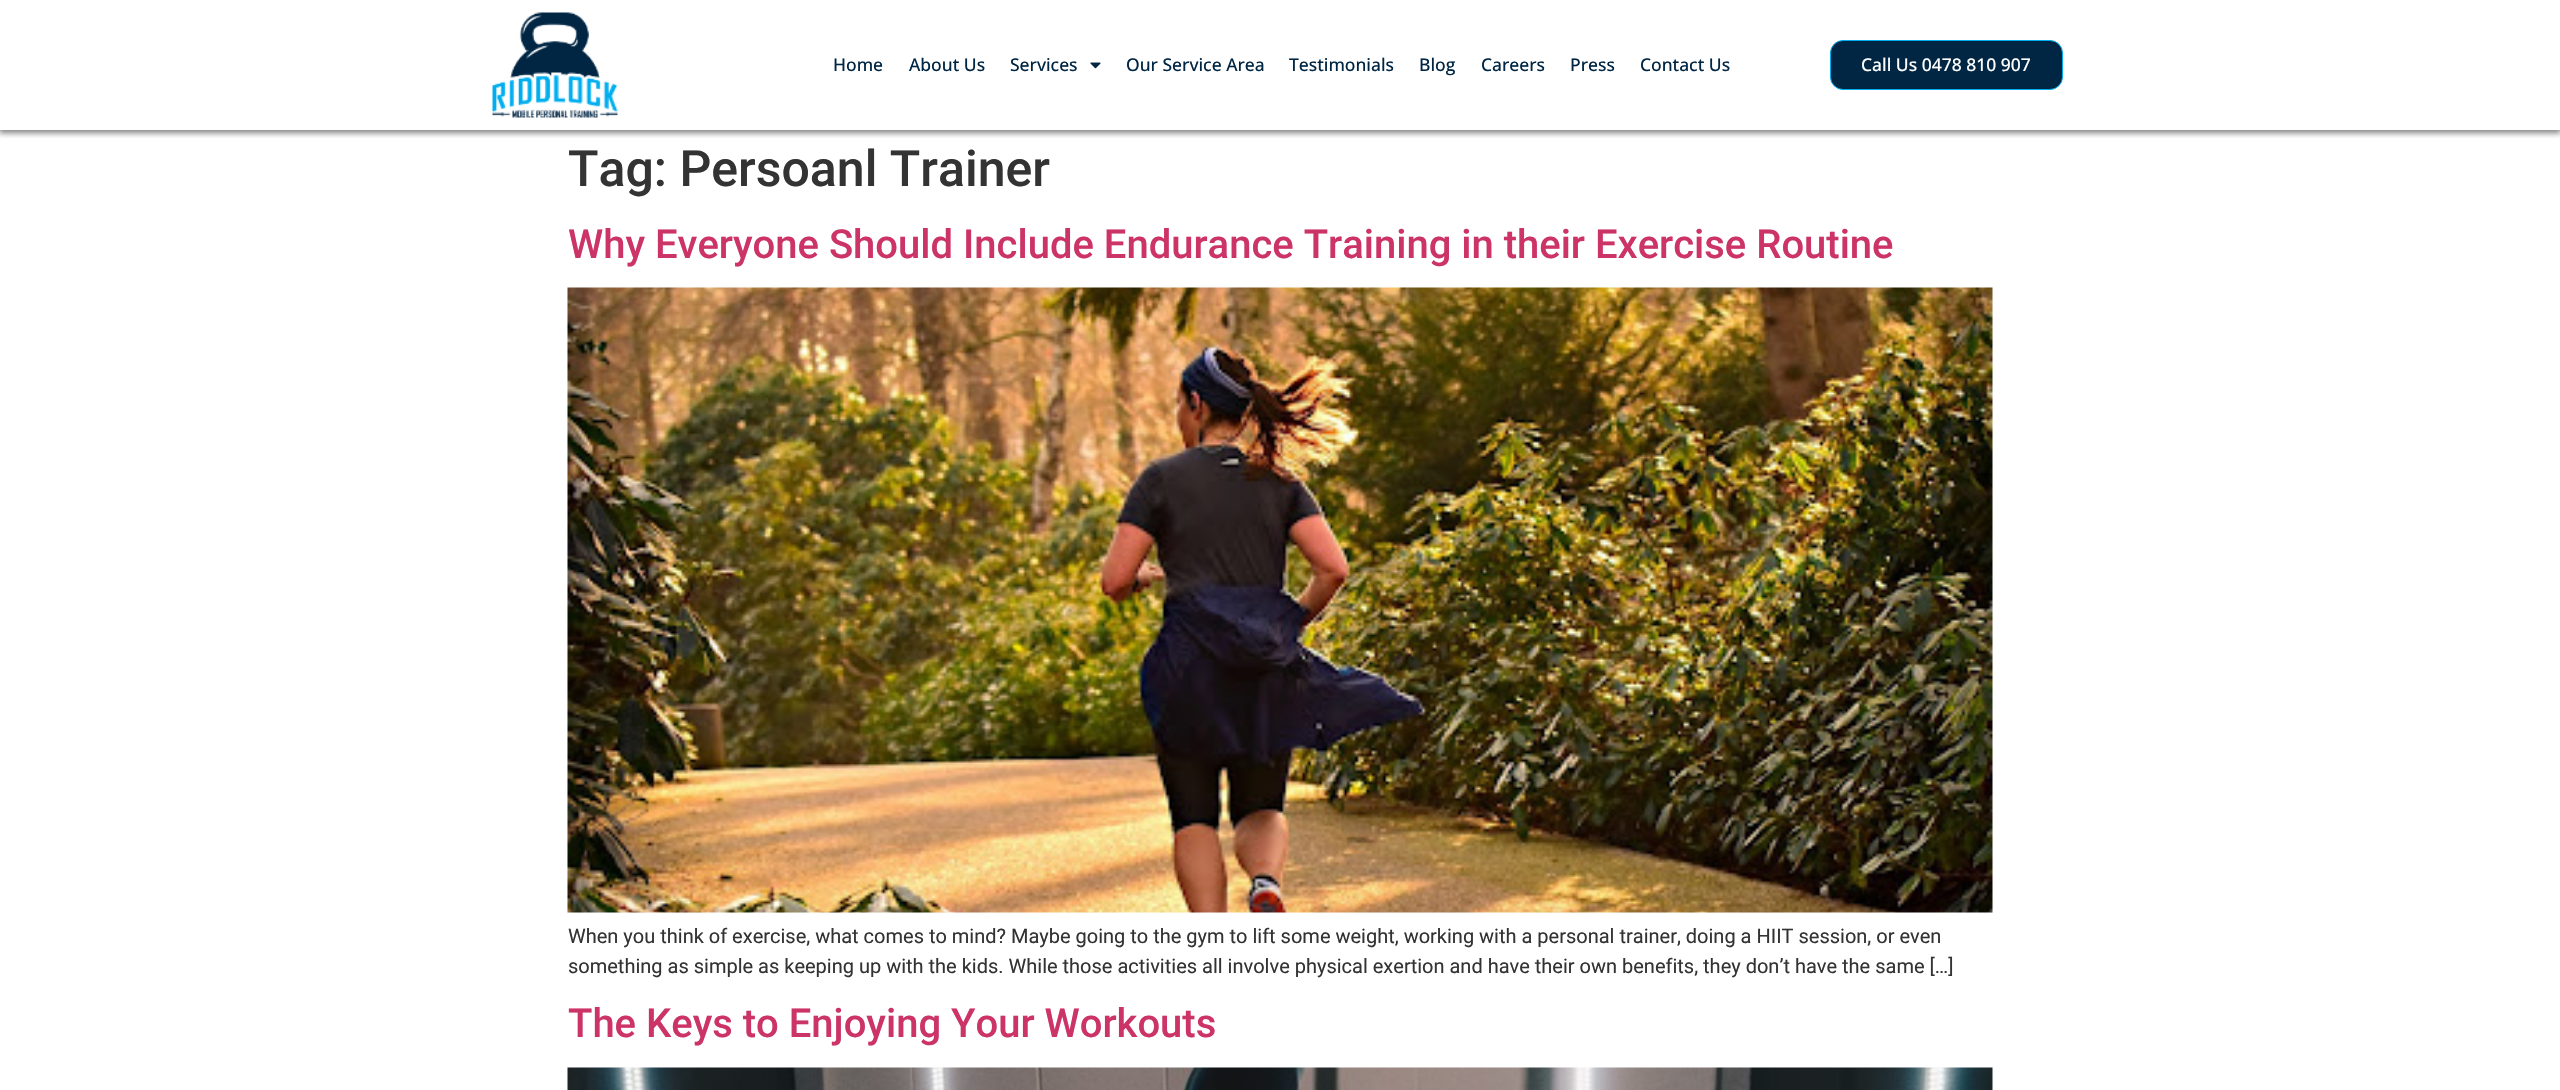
#include "include/core/SkBlurTypes.h"
#include "include/core/SkCanvas.h"
#include "include/core/SkData.h"
#include "include/core/SkFont.h"
#include "include/core/SkFontMgr.h"
#include "include/core/SkImage.h"
#include "include/core/SkMaskFilter.h"
#include "include/core/SkPaint.h"
#include "include/core/SkPathBuilder.h"
#include "include/core/SkTextBlob.h"
#include "include/effects/SkDashPathEffect.h"
#include "include/effects/SkGradientShader.h"
#include "include/utils/SkParsePath.h"

extern sk_sp<SkFontMgr> fontMgr;

void draw(SkCanvas* canvas) {
  SkPaint p;
  p.setAntiAlias(true);
  canvas->clear(SK_ColorWHITE);
  canvas->save();
  canvas->clipRect(SkRect::MakeLTRB(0, 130, 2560, 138));
  p.setColor(SkColorSetARGB(128, 0, 0, 0));
  p.setMaskFilter(SkMaskFilter::MakeBlur(kNormal_SkBlurStyle, 3));
  canvas->drawRect(SkRect::MakeLTRB(-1, 0, 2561, 133), p);
  p.setMaskFilter(nullptr);
  canvas->restore();
  canvas->drawImageRect(SkImages::DeferredFromEncodedData(SkData::MakeFromFileName("images/1.png")), SkRect::MakeLTRB(492, 12, 618, 118), SkSamplingOptions());
  canvas->drawImageRect(SkImages::DeferredFromEncodedData(SkData::MakeFromFileName("images/2.png")), SkRect::MakeLTRB(1090, 62, 1101, 69), SkSamplingOptions());
  p.setColor(SkColorSetRGB(0, 38, 68));
  canvas->drawRoundRect(SkRect::MakeLTRB(1830.5f, 40.5f, 2062.5f, 89.5f), 12.5f, 12.5f, p);
  p.setStyle(SkPaint::kStroke_Style);
  p.setStrokeWidth(1);
  p.setColor(SkColorSetRGB(0, 174, 239));
  canvas->drawRoundRect(SkRect::MakeLTRB(1830.5f, 40.5f, 2062.5f, 89.5f), 12.5f, 12.5f, p);
  canvas->drawImageRect(SkImages::DeferredFromEncodedData(SkData::MakeFromFileName("images/3.png")), SkRect::MakeLTRB(567, 287, 1993, 913), SkSamplingOptions());
  canvas->drawImageRect(SkImages::DeferredFromEncodedData(SkData::MakeFromFileName("images/4.png")), SkRect::MakeLTRB(567, 1067, 1993, 1090), SkSamplingOptions());
  SkFont font1(fontMgr->matchFamilyStyle("Open Sans", SkFontStyle(500, SkFontStyle::kNormal_Width, SkFontStyle::kUpright_Slant)), 17.5f);
  font1.setSubpixel(true);
  p.setStyle(SkPaint::kFill_Style);
  p.setColor(SkColorSetRGB(0, 38, 68));
  canvas->drawString("Home", 833, 71, font1, p);
  canvas->drawString("About Us", 909, 71, font1, p);
  canvas->drawString("Services", 1010, 71, font1, p);
  canvas->drawString("Our Service Area", 1126, 71, font1, p);
  canvas->drawString("Testimonials", 1289, 71, font1, p);
  canvas->drawString("Blog", 1419, 71, font1, p);
  canvas->drawString("Careers", 1481, 71, font1, p);
  canvas->drawString("Press", 1570, 71, font1, p);
  canvas->drawString("Contact Us", 1640, 71, font1, p);
  p.setColor(SK_ColorWHITE);
  canvas->drawString("Call Us 0478 810 907", 1861, 71, font1, p);
  SkFont font2(fontMgr->matchFamilyStyle("Roboto", SkFontStyle(500, SkFontStyle::kNormal_Width, SkFontStyle::kUpright_Slant)), 50);
  font2.setSubpixel(true);
  p.setColor(SkColorSetRGB(51, 51, 51));
  canvas->drawString("Tag: Persoanl Trainer", 568, 186, font2, p);
  SkFont font3(fontMgr->matchFamilyStyle("Roboto", SkFontStyle(500, SkFontStyle::kNormal_Width, SkFontStyle::kUpright_Slant)), 40);
  font3.setSubpixel(true);
  p.setColor(SkColorSetRGB(204, 51, 102));
  canvas->drawString("Why Everyone Should Include Endurance Training in their Exercise Routine", 568, 258, font3, p);
  SkFont font4(fontMgr->matchFamilyStyle("Roboto", SkFontStyle::Normal()), 20);
  font4.setSubpixel(true);
  p.setColor(SkColorSetRGB(51, 51, 51));
  canvas->drawString("When you think of exercise, what comes to mind? Maybe going to the gym to lift some weight, working with a personal trainer, doing a HIIT session, or even", 568, 943, font4, p);
  canvas->drawString("something as simple as keeping up with the kids. While those activities all involve physical exertion and have their own benefits, they don’t have the same […]", 568, 973, font4, p);
  p.setColor(SkColorSetRGB(204, 51, 102));
  canvas->drawString("The Keys to Enjoying Your Workouts", 568, 1037, font3, p);
}
